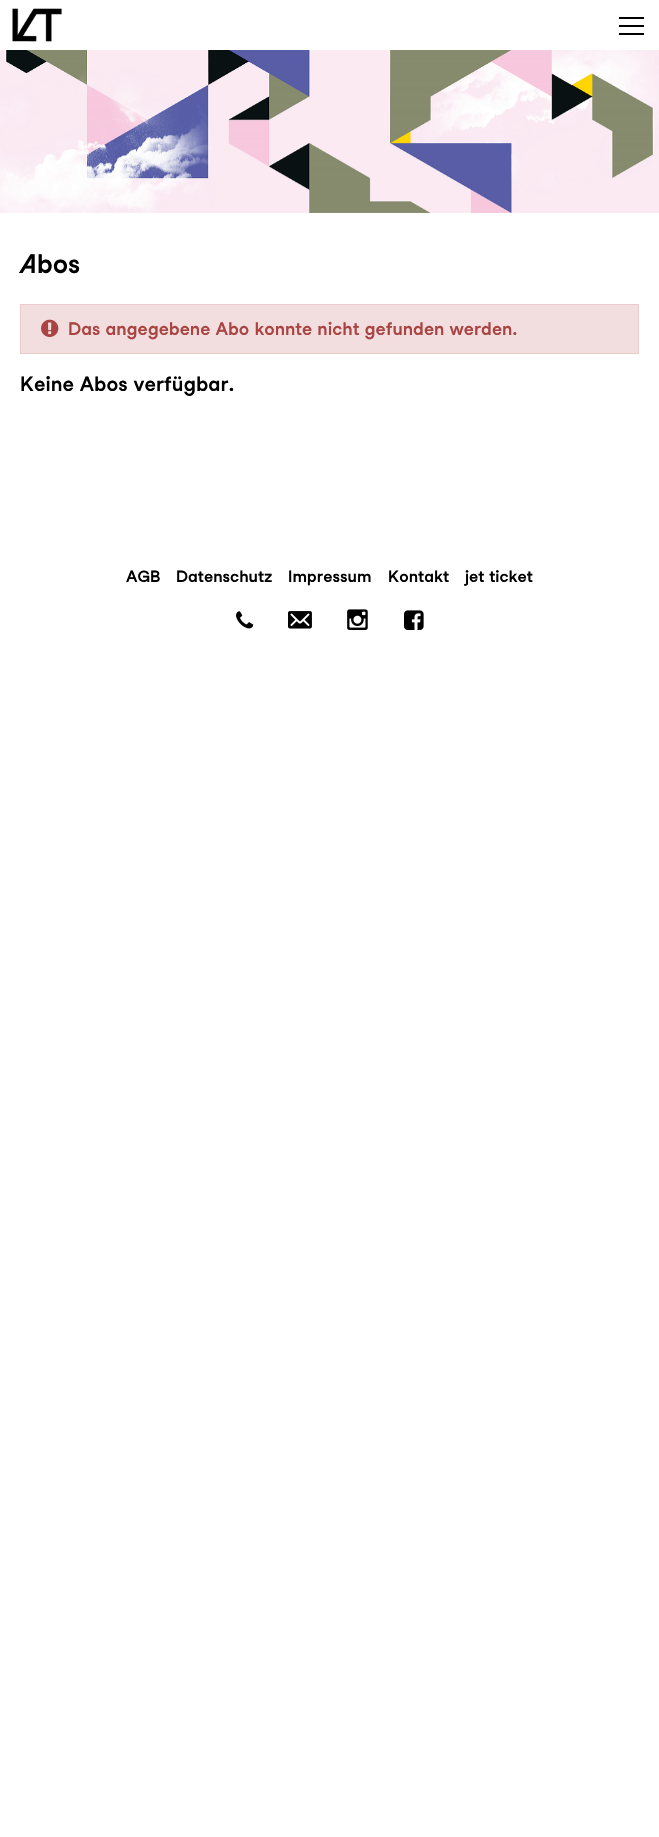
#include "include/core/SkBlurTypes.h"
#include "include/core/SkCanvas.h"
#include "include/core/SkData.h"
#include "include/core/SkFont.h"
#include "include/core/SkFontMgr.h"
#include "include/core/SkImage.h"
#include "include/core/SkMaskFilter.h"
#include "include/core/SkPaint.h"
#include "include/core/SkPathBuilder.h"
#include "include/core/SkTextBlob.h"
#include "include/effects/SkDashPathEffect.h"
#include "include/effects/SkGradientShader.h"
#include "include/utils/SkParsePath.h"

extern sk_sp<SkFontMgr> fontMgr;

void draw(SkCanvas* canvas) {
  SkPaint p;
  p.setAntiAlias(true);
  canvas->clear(SK_ColorWHITE);
  canvas->drawImageRect(SkImages::DeferredFromEncodedData(SkData::MakeFromFileName("images/1.png")), SkRect::MakeLTRB(12, 8, 62, 42), SkSamplingOptions());
  p.setColor(SK_ColorBLACK);
  canvas->drawRect(SkRect::MakeLTRB(619, 17, 644, 19), p);
  canvas->drawRect(SkRect::MakeLTRB(619, 25, 644, 27), p);
  canvas->drawRect(SkRect::MakeLTRB(619, 33, 644, 35), p);
  canvas->drawImageRect(SkImages::DeferredFromEncodedData(SkData::MakeFromFileName("images/2.png")), SkRect::MakeLTRB(0, 50, 659, 213), SkSamplingOptions());
  p.setColor(SkColorSetRGB(242, 222, 222));
  canvas->drawRect(SkRect::MakeLTRB(20.5f, 304.5f, 638.5f, 353.5f), p);
  p.setStyle(SkPaint::kStroke_Style);
  p.setStrokeWidth(1);
  p.setColor(SkColorSetRGB(235, 204, 204));
  canvas->drawRect(SkRect::MakeLTRB(20.5f, 304.5f, 638.5f, 353.5f), p);
  canvas->drawImageRect(SkImages::DeferredFromEncodedData(SkData::MakeFromFileName("images/3.png")), SkRect::MakeLTRB(41, 319, 59, 337), SkSamplingOptions());
  canvas->drawImageRect(SkImages::DeferredFromEncodedData(SkData::MakeFromFileName("images/4.png")), SkRect::MakeLTRB(236, 611, 254, 629), SkSamplingOptions());
  canvas->drawImageRect(SkImages::DeferredFromEncodedData(SkData::MakeFromFileName("images/5.png")), SkRect::MakeLTRB(288, 611, 312, 629), SkSamplingOptions());
  canvas->drawImageRect(SkImages::DeferredFromEncodedData(SkData::MakeFromFileName("images/6.png")), SkRect::MakeLTRB(347, 609, 368, 630), SkSamplingOptions());
  canvas->drawImageRect(SkImages::DeferredFromEncodedData(SkData::MakeFromFileName("images/7.png")), SkRect::MakeLTRB(404, 610, 424, 630), SkSamplingOptions());
  SkFont font1(fontMgr->matchFamilyStyle("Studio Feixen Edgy", SkFontStyle(600, SkFontStyle::kNormal_Width, SkFontStyle::kUpright_Slant)), 26);
  font1.setSubpixel(true);
  p.setStyle(SkPaint::kFill_Style);
  p.setColor(SK_ColorBLACK);
  canvas->drawString("Abos", 20, 273, font1, p);
  SkFont font2(fontMgr->matchFamilyStyle("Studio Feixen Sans", SkFontStyle(600, SkFontStyle::kNormal_Width, SkFontStyle::kUpright_Slant)), 17.6f);
  font2.setSubpixel(true);
  p.setColor(SkColorSetRGB(169, 68, 66));
  canvas->drawString("Das angegebene Abo konnte nicht gefunden werden.", 68, 335, font2, p);
  SkFont font3(fontMgr->matchFamilyStyle("Studio Feixen Sans", SkFontStyle(600, SkFontStyle::kNormal_Width, SkFontStyle::kUpright_Slant)), 20);
  font3.setSubpixel(true);
  p.setColor(SK_ColorBLACK);
  canvas->drawString("Keine Abos verfügbar.", 20, 391, font3, p);
  SkFont font4(fontMgr->matchFamilyStyle("Studio Feixen Sans", SkFontStyle(600, SkFontStyle::kNormal_Width, SkFontStyle::kUpright_Slant)), 16);
  font4.setSubpixel(true);
  canvas->drawString("AGB", 126, 582, font4, p);
  canvas->drawString("Datenschutz", 176, 582, font4, p);
  canvas->drawString("Impressum", 288, 582, font4, p);
  canvas->drawString("Kontakt", 388, 582, font4, p);
  canvas->drawString("jet ticket", 465, 582, font4, p);
}
